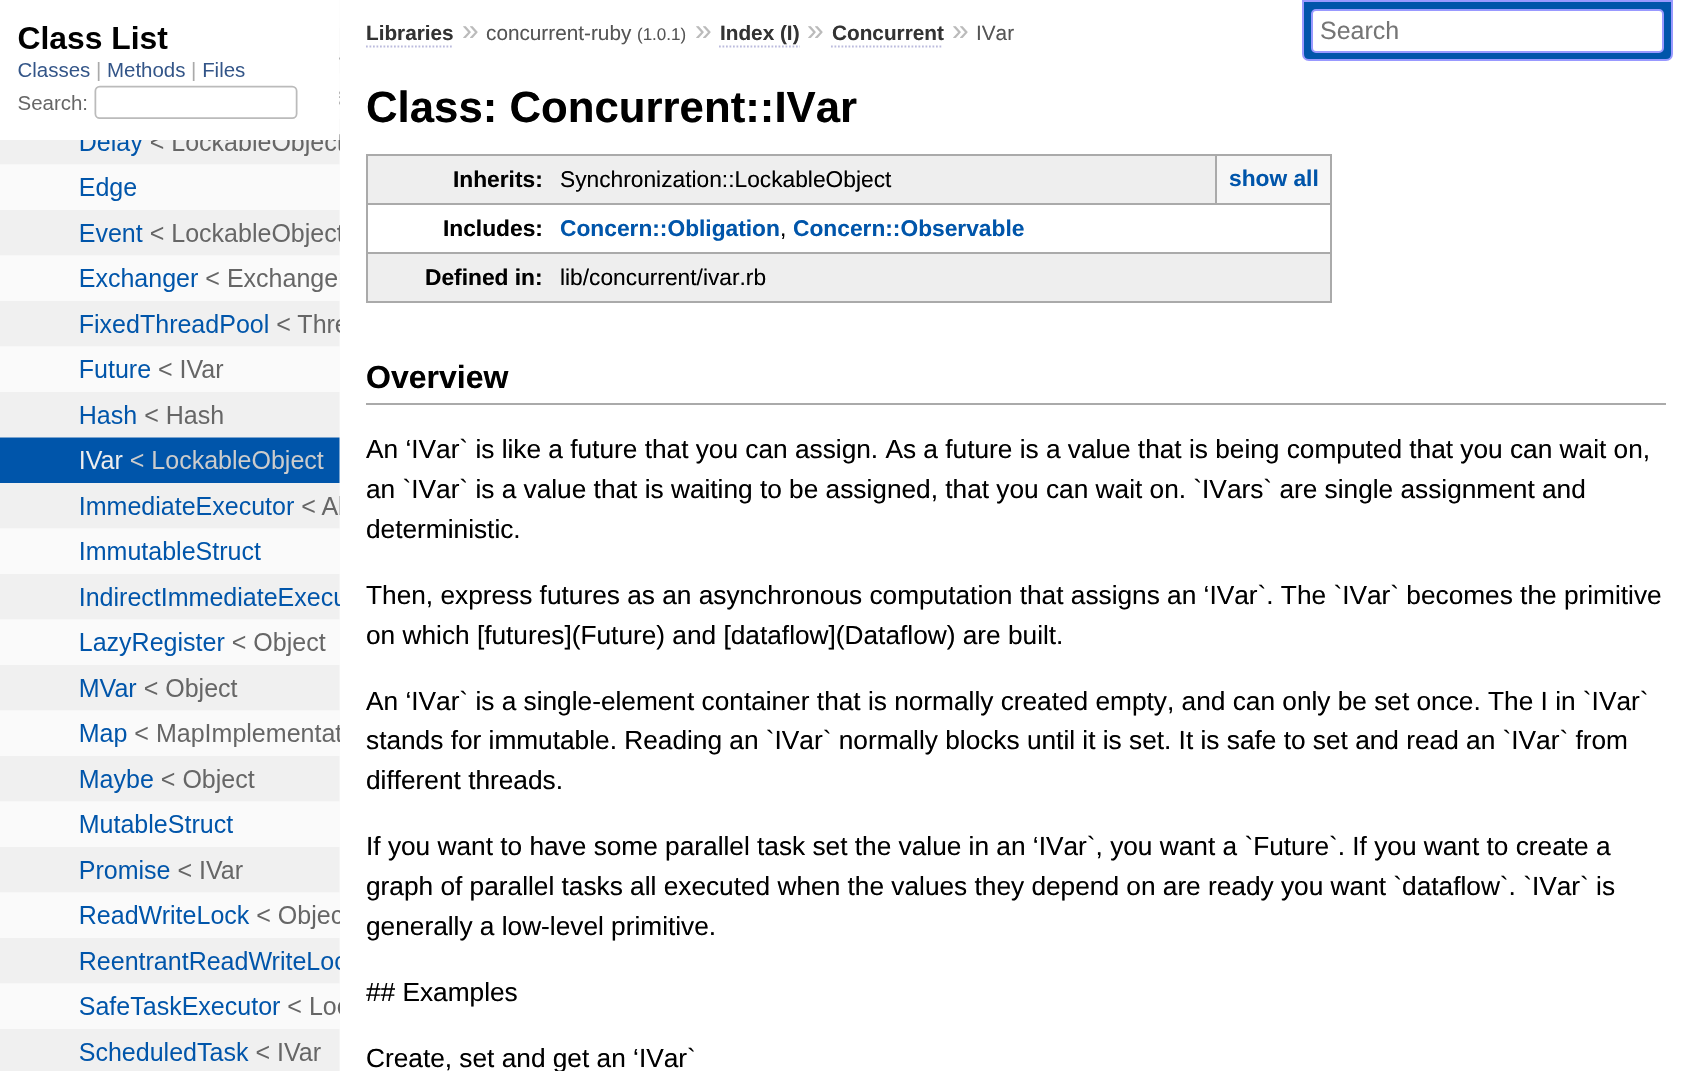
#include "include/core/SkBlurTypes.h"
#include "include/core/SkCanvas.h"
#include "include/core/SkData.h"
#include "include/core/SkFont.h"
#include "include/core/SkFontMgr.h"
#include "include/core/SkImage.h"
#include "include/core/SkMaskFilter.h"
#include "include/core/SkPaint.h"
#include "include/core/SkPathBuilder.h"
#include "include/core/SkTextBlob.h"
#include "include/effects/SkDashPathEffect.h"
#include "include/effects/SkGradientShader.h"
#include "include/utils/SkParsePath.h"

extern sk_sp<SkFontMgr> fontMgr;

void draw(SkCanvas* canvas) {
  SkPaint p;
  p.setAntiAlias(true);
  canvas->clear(SK_ColorWHITE);
  canvas->drawImageRect(SkImages::DeferredFromEncodedData(SkData::MakeFromFileName("images/1.png")), SkRect::MakeLTRB(0, 0, 340, 1071), SkSamplingOptions());
  p.setStyle(SkPaint::kStroke_Style);
  p.setStrokeWidth(1.8f);
  p.setColor(SkColorSetRGB(187, 187, 221));
  p.setPathEffect(SkDashPathEffect::Make({{1.75f, 1.75f}}, 0));
  canvas->drawPath(SkPathBuilder().moveTo(366, 46.5f).lineTo(453, 46.5f).detach(), p);
  p.setPathEffect(nullptr);
  p.setPathEffect(SkDashPathEffect::Make({{1.75f, 1.75f}}, 0));
  canvas->drawPath(SkPathBuilder().moveTo(719, 46.5f).lineTo(800, 46.5f).detach(), p);
  p.setPathEffect(nullptr);
  p.setPathEffect(SkDashPathEffect::Make({{1.75f, 1.75f}}, 0));
  canvas->drawPath(SkPathBuilder().moveTo(831, 46.5f).lineTo(943, 46.5f).detach(), p);
  p.setPathEffect(nullptr);
  p.setStyle(SkPaint::kFill_Style);
  p.setColor(SkColorSetRGB(0, 85, 170));
  canvas->drawPath(SkPathBuilder().moveTo(1303, 1).lineTo(1672, 1).lineTo(1672, 54).cubicTo(1672, 57.5f, 1669.5f, 60, 1666, 60).lineTo(1309, 60).cubicTo(1305.5f, 60, 1303, 57.5f, 1303, 54).close().detach(), p);
  p.setStyle(SkPaint::kStroke_Style);
  p.setStrokeWidth(2);
  p.setColor(SkColorSetRGB(153, 153, 255));
  canvas->drawPath(SkPathBuilder().moveTo(1303, 1).lineTo(1672, 1).lineTo(1672, 54).cubicTo(1672, 57.5f, 1669.5f, 60, 1666, 60).lineTo(1309, 60).cubicTo(1305.5f, 60, 1303, 57.5f, 1303, 54).close().detach(), p);
  p.setStyle(SkPaint::kFill_Style);
  p.setColor(SK_ColorWHITE);
  canvas->drawRoundRect(SkRect::MakeLTRB(1312, 10, 1663, 52), 4, 4, p);
  p.setStyle(SkPaint::kStroke_Style);
  p.setColor(SkColorSetRGB(153, 153, 255));
  canvas->drawRoundRect(SkRect::MakeLTRB(1312, 10, 1663, 52), 4, 4, p);
  p.setStyle(SkPaint::kFill_Style);
  p.setColor(SkColorSetRGB(238, 238, 238));
  canvas->drawRect(SkRect::MakeLTRB(368, 156, 1215, 203), p);
  p.setColor(SkColorSetRGB(170, 170, 170));
  canvas->drawRect(SkRect::MakeLTRB(366, 154, 1332, 156), p);
  canvas->drawRect(SkRect::MakeLTRB(366, 154, 368, 203), p);
  canvas->drawRect(SkRect::MakeLTRB(366, 203, 1332, 205), p);
  canvas->drawRect(SkRect::MakeLTRB(366, 252, 1332, 254), p);
  canvas->drawRect(SkRect::MakeLTRB(1330, 154, 1332, 303), p);
  p.setColor(SkColorSetRGB(246, 246, 246));
  canvas->drawRect(SkRect::MakeLTRB(1217, 156, 1330, 203), p);
  p.setColor(SkColorSetRGB(170, 170, 170));
  canvas->drawRect(SkRect::MakeLTRB(1215, 156, 1217, 203), p);
  canvas->drawRect(SkRect::MakeLTRB(366, 203, 368, 252), p);
  p.setColor(SkColorSetRGB(238, 238, 238));
  canvas->drawRect(SkRect::MakeLTRB(368, 254, 1330, 301), p);
  p.setColor(SkColorSetRGB(170, 170, 170));
  canvas->drawRect(SkRect::MakeLTRB(366, 301, 560, 303), p);
  canvas->drawRect(SkRect::MakeLTRB(366, 252, 368, 303), p);
  canvas->drawRect(SkRect::MakeLTRB(560, 301, 1332, 303), p);
  canvas->drawRect(SkRect::MakeLTRB(366, 403, 1666, 405), p);
  SkFont font1(fontMgr->matchFamilyStyle("Liberation Sans", SkFontStyle::Bold()), 20.75f);
  font1.setSubpixel(true);
  p.setColor(SkColorSetRGB(51, 51, 51));
  canvas->drawString("Libraries", 366, 40, font1, p);
  SkFont font2(fontMgr->matchFamilyStyle("Liberation Sans", SkFontStyle::Normal()), 30);
  font2.setSubpixel(true);
  p.setColor(SkColorSetRGB(187, 187, 187));
  canvas->drawString("»", 462, 40, font2, p);
  SkFont font3(fontMgr->matchFamilyStyle("Liberation Sans", SkFontStyle::Normal()), 20.75f);
  font3.setSubpixel(true);
  p.setColor(SkColorSetRGB(85, 85, 85));
  canvas->drawString("concurrent-ruby", 486, 40, font3, p);
  SkFont font4(fontMgr->matchFamilyStyle("Liberation Sans", SkFontStyle::Normal()), 17);
  font4.setSubpixel(true);
  canvas->drawString("(1.0.1)", 637, 40, font4, p);
  p.setColor(SkColorSetRGB(187, 187, 187));
  canvas->drawString("»", 695, 40, font2, p);
  p.setColor(SkColorSetRGB(51, 51, 51));
  canvas->drawString("Index (I)", 720, 40, font1, p);
  p.setColor(SkColorSetRGB(187, 187, 187));
  canvas->drawString("»", 807, 40, font2, p);
  p.setColor(SkColorSetRGB(51, 51, 51));
  canvas->drawString("Concurrent", 832, 40, font1, p);
  p.setColor(SkColorSetRGB(187, 187, 187));
  canvas->drawString("»", 952, 40, font2, p);
  p.setColor(SkColorSetRGB(85, 85, 85));
  canvas->drawString("IVar", 976, 40, font3, p);
  SkFont font5(fontMgr->matchFamilyStyle("Liberation Sans", SkFontStyle::Normal()), 25);
  font5.setSubpixel(true);
  p.setColor(SkColorSetRGB(117, 117, 117));
  canvas->drawString("Search", 1320, 39, font5, p);
  SkFont font6(fontMgr->matchFamilyStyle("Liberation Sans", SkFontStyle::Bold()), 43.75f);
  font6.setSubpixel(true);
  p.setColor(SK_ColorBLACK);
  canvas->drawString("Class: Concurrent::IVar", 366, 122, font6, p);
  SkFont font7(fontMgr->matchFamilyStyle("Liberation Sans", SkFontStyle::Bold()), 22.75f);
  font7.setSubpixel(true);
  canvas->drawString("Inherits:", 453, 187, font7, p);
  SkFont font8(fontMgr->matchFamilyStyle("Liberation Sans", SkFontStyle::Normal()), 22.75f);
  font8.setSubpixel(true);
  canvas->drawString("Synchronization::LockableObject", 560, 187, font8, p);
  p.setColor(SkColorSetRGB(0, 85, 170));
  canvas->drawString("show all", 1229, 186, font7, p);
  p.setColor(SK_ColorBLACK);
  canvas->drawString("Includes:", 443, 236, font7, p);
  p.setColor(SkColorSetRGB(0, 85, 170));
  canvas->drawString("Concern::Obligation", 560, 236, font7, p);
  p.setColor(SK_ColorBLACK);
  canvas->drawString(",", 780, 236, font8, p);
  p.setColor(SkColorSetRGB(0, 85, 170));
  canvas->drawString("Concern::Observable", 793, 236, font7, p);
  p.setColor(SK_ColorBLACK);
  canvas->drawString("Defined in:", 425, 285, font7, p);
  canvas->drawString("lib/concurrent/ivar.rb", 560, 285, font8, p);
  SkFont font9(fontMgr->matchFamilyStyle("Liberation Sans", SkFontStyle::Bold()), 32);
  font9.setSubpixel(true);
  canvas->drawString("Overview", 366, 388, font9, p);
  SkFont font10(fontMgr->matchFamilyStyle("Liberation Sans", SkFontStyle::Normal()), 26.25f);
  font10.setSubpixel(true);
  canvas->drawString("An ‘IVar` is like a future that you can assign. As a future is a value that is being computed that you can wait on,", 366, 458, font10, p);
  canvas->drawString("an `IVar` is a value that is waiting to be assigned, that you can wait on. `IVars` are single assignment and", 366, 498, font10, p);
  canvas->drawString("deterministic.", 366, 538, font10, p);
  canvas->drawString("Then, express futures as an asynchronous computation that assigns an ‘IVar`. The `IVar` becomes the primitive", 366, 604, font10, p);
  canvas->drawString("on which [futures](Future) and [dataflow](Dataflow) are built.", 366, 644, font10, p);
  canvas->drawString("An ‘IVar` is a single-element container that is normally created empty, and can only be set once. The I in `IVar`", 366, 710, font10, p);
  canvas->drawString("stands for immutable. Reading an `IVar` normally blocks until it is set. It is safe to set and read an `IVar` from", 366, 749, font10, p);
  canvas->drawString("different threads.", 366, 789, font10, p);
  canvas->drawString("If you want to have some parallel task set the value in an ‘IVar`, you want a `Future`. If you want to create a", 366, 855, font10, p);
  canvas->drawString("graph of parallel tasks all executed when the values they depend on are ready you want `dataflow`. `IVar` is", 366, 895, font10, p);
  canvas->drawString("generally a low-level primitive.", 366, 935, font10, p);
  canvas->drawString("## Examples", 366, 1001, font10, p);
  canvas->drawString("Create, set and get an ‘IVar`", 366, 1067, font10, p);
}
